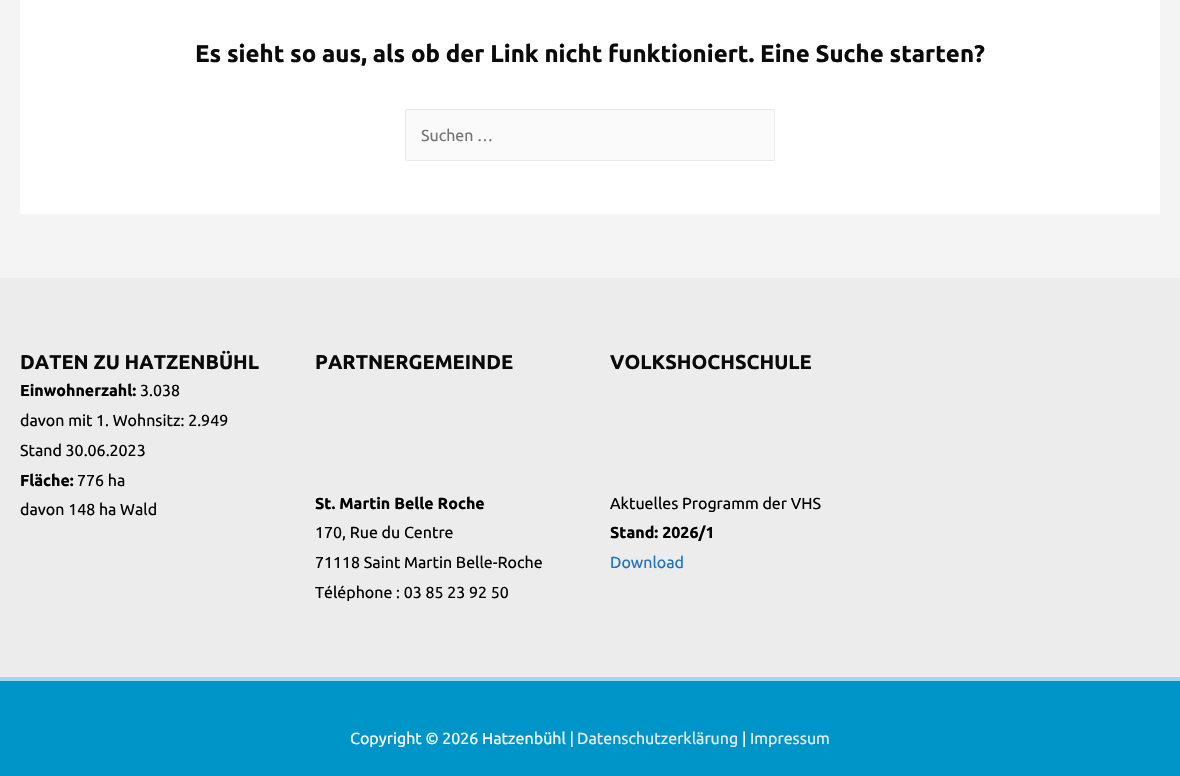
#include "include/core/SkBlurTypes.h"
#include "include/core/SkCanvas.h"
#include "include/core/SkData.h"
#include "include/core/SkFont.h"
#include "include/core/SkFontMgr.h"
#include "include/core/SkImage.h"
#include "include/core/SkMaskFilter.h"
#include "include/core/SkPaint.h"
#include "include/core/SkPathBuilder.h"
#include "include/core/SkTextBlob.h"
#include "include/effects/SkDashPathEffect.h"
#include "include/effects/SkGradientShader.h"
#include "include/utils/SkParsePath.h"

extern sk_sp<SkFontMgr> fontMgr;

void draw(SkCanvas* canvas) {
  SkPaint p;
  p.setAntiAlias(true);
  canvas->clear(SkColorSetRGB(244, 244, 244));
  p.setColor(SK_ColorWHITE);
  canvas->drawRect(SkRect::MakeLTRB(20, 0, 1160, 214), p);
  p.setColor(SkColorSetRGB(250, 250, 250));
  canvas->drawRoundRect(SkRect::MakeLTRB(405.5f, 109.5f, 774.5f, 160.5f), 1.5f, 1.5f, p);
  p.setStyle(SkPaint::kStroke_Style);
  p.setStrokeWidth(1);
  p.setColor(SkColorSetRGB(234, 234, 234));
  canvas->drawRoundRect(SkRect::MakeLTRB(405.5f, 109.5f, 774.5f, 160.5f), 1.5f, 1.5f, p);
  p.setStyle(SkPaint::kFill_Style);
  p.setColor(SkColorSetRGB(237, 236, 236));
  canvas->drawRect(SkRect::MakeLTRB(0, 278, 1180, 677), p);
  p.setColor(SkColorSetRGB(162, 216, 235));
  canvas->drawRect(SkRect::MakeLTRB(0, 677, 1180, 681), p);
  p.setColor(SkColorSetRGB(0, 149, 200));
  canvas->drawRect(SkRect::MakeLTRB(0, 681, 1180, 776), p);
  SkFont font1(fontMgr->matchFamilyStyle("Ubuntu", SkFontStyle::Bold()), 24);
  font1.setSubpixel(true);
  p.setColor(SkColorSetRGB(10, 10, 10));
  canvas->drawString("Es sieht so aus, als ob der Link nicht funktioniert. Eine Suche starten?", 195, 62, font1, p);
  SkFont font2(fontMgr->matchFamilyStyle("Ubuntu", SkFontStyle::Normal()), 16);
  font2.setSubpixel(true);
  p.setColor(SkColorSetRGB(117, 117, 117));
  canvas->drawString("Suchen …", 421, 141, font2, p);
  SkFont font3(fontMgr->matchFamilyStyle("Ubuntu", SkFontStyle::Bold()), 20);
  font3.setSubpixel(true);
  p.setColor(SkColorSetRGB(10, 10, 10));
  canvas->drawString("DATEN ZU HATZENBÜHL", 20, 369, font3, p);
  SkFont font4(fontMgr->matchFamilyStyle("Ubuntu", SkFontStyle::Bold()), 16);
  font4.setSubpixel(true);
  p.setColor(SK_ColorBLACK);
  canvas->drawString("Einwohnerzahl:", 20, 396, font4, p);
  canvas->drawString("3.038", 140, 396, font2, p);
  canvas->drawString("davon mit 1. Wohnsitz: 2.949", 20, 426, font2, p);
  canvas->drawString("Stand 30.06.2023", 20, 456, font2, p);
  canvas->drawString("Fläche:", 20, 486, font4, p);
  canvas->drawString("776 ha", 77, 486, font2, p);
  canvas->drawString("davon 148 ha Wald", 20, 515, font2, p);
  p.setColor(SkColorSetRGB(10, 10, 10));
  canvas->drawString("PARTNERGEMEINDE", 315, 369, font3, p);
  p.setColor(SK_ColorBLACK);
  canvas->drawString("St. Martin Belle Roche", 315, 509, font4, p);
  canvas->drawString("170, Rue du Centre", 315, 538, font2, p);
  canvas->drawString("71118 Saint Martin Belle-Roche", 315, 568, font2, p);
  canvas->drawString("Téléphone : 03 85 23 92 50", 315, 598, font2, p);
  p.setColor(SkColorSetRGB(10, 10, 10));
  canvas->drawString("VOLKSHOCHSCHULE", 610, 369, font3, p);
  p.setColor(SK_ColorBLACK);
  canvas->drawString("Aktuelles Programm der VHS", 610, 509, font2, p);
  canvas->drawString("Stand: 2026/1", 610, 538, font4, p);
  p.setColor(SkColorSetRGB(30, 115, 190));
  canvas->drawString("Download", 610, 568, font2, p);
  p.setColor(SK_ColorWHITE);
  canvas->drawString("Copyright © 2026 Hatzenbühl |", 350, 744, font2, p);
  p.setColor(SkColorSetRGB(234, 234, 234));
  canvas->drawString("Datenschutzerklärung", 577, 744, font2, p);
  p.setColor(SK_ColorWHITE);
  canvas->drawString("|", 742, 744, font2, p);
  p.setColor(SkColorSetRGB(234, 234, 234));
  canvas->drawString("Impressum", 750, 744, font2, p);
}
